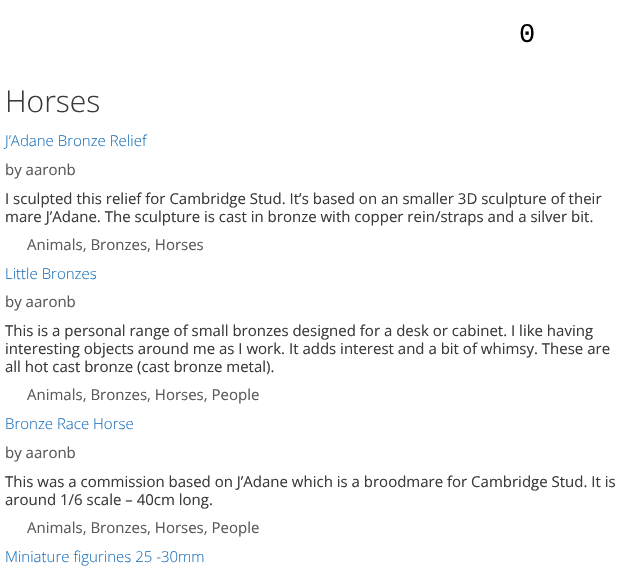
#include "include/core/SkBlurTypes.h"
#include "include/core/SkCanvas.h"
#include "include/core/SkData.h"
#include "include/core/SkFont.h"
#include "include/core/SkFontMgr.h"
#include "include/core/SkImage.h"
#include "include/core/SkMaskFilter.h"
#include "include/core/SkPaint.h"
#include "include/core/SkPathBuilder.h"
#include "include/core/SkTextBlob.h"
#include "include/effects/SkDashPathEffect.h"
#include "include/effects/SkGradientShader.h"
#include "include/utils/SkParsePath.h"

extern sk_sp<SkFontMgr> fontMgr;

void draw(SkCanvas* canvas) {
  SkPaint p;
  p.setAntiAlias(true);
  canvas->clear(SK_ColorWHITE);
  SkFont font1(fontMgr->matchFamilyStyle("Liberation Mono", SkFontStyle::Normal()), 27);
  font1.setSubpixel(true);
  p.setColor(SkColorSetRGB(1, 1, 1));
  canvas->drawString("0", 519, 42, font1, p);
  SkFont font2(fontMgr->matchFamilyStyle("Open Sans", SkFontStyle(300, SkFontStyle::kNormal_Width, SkFontStyle::kUpright_Slant)), 30);
  font2.setSubpixel(true);
  p.setColor(SkColorSetRGB(58, 58, 58));
  canvas->drawString("Horses", 5, 112, font2, p);
  SkFont font3(fontMgr->matchFamilyStyle("Open Sans", SkFontStyle(300, SkFontStyle::kNormal_Width, SkFontStyle::kUpright_Slant)), 15);
  font3.setSubpixel(true);
  p.setColor(SkColorSetRGB(30, 115, 190));
  canvas->drawString("J’Adane Bronze Relief", 5, 146, font3, p);
  SkFont font4(fontMgr->matchFamilyStyle("Open Sans", SkFontStyle::Normal()), 15);
  font4.setSubpixel(true);
  p.setColor(SkColorSetRGB(89, 89, 89));
  canvas->drawString("by aaronb", 5, 175, font4, p);
  p.setColor(SkColorSetRGB(58, 58, 58));
  canvas->drawString("I sculpted this relief for Cambridge Stud. It’s based on an smaller 3D sculpture of their", 5, 204, font4, p);
  canvas->drawString("mare J’Adane. The sculpture is cast in bronze with copper rein/straps and a silver bit.", 5, 222, font4, p);
  p.setColor(SkColorSetRGB(89, 89, 89));
  canvas->drawString("Animals, Bronzes, Horses", 27, 250, font4, p);
  p.setColor(SkColorSetRGB(30, 115, 190));
  canvas->drawString("Little Bronzes", 5, 279, font3, p);
  p.setColor(SkColorSetRGB(89, 89, 89));
  canvas->drawString("by aaronb", 5, 307, font4, p);
  p.setColor(SkColorSetRGB(58, 58, 58));
  canvas->drawString("This is a personal range of small bronzes designed for a desk or cabinet. I like having", 5, 336, font4, p);
  canvas->drawString("interesting objects around me as I work. It adds interest and a bit of whimsy. These are", 5, 354, font4, p);
  canvas->drawString("all hot cast bronze (cast bronze metal).", 5, 372, font4, p);
  p.setColor(SkColorSetRGB(89, 89, 89));
  canvas->drawString("Animals, Bronzes, Horses, People", 27, 400, font4, p);
  p.setColor(SkColorSetRGB(30, 115, 190));
  canvas->drawString("Bronze Race Horse", 5, 429, font3, p);
  p.setColor(SkColorSetRGB(89, 89, 89));
  canvas->drawString("by aaronb", 5, 458, font4, p);
  p.setColor(SkColorSetRGB(58, 58, 58));
  canvas->drawString("This was a commission based on J’Adane which is a broodmare for Cambridge Stud. It is", 5, 487, font4, p);
  canvas->drawString("around 1/6 scale – 40cm long.", 5, 505, font4, p);
  p.setColor(SkColorSetRGB(89, 89, 89));
  canvas->drawString("Animals, Bronzes, Horses, People", 27, 533, font4, p);
  p.setColor(SkColorSetRGB(30, 115, 190));
  canvas->drawString("Miniature figurines 25 -30mm", 5, 562, font3, p);
}
